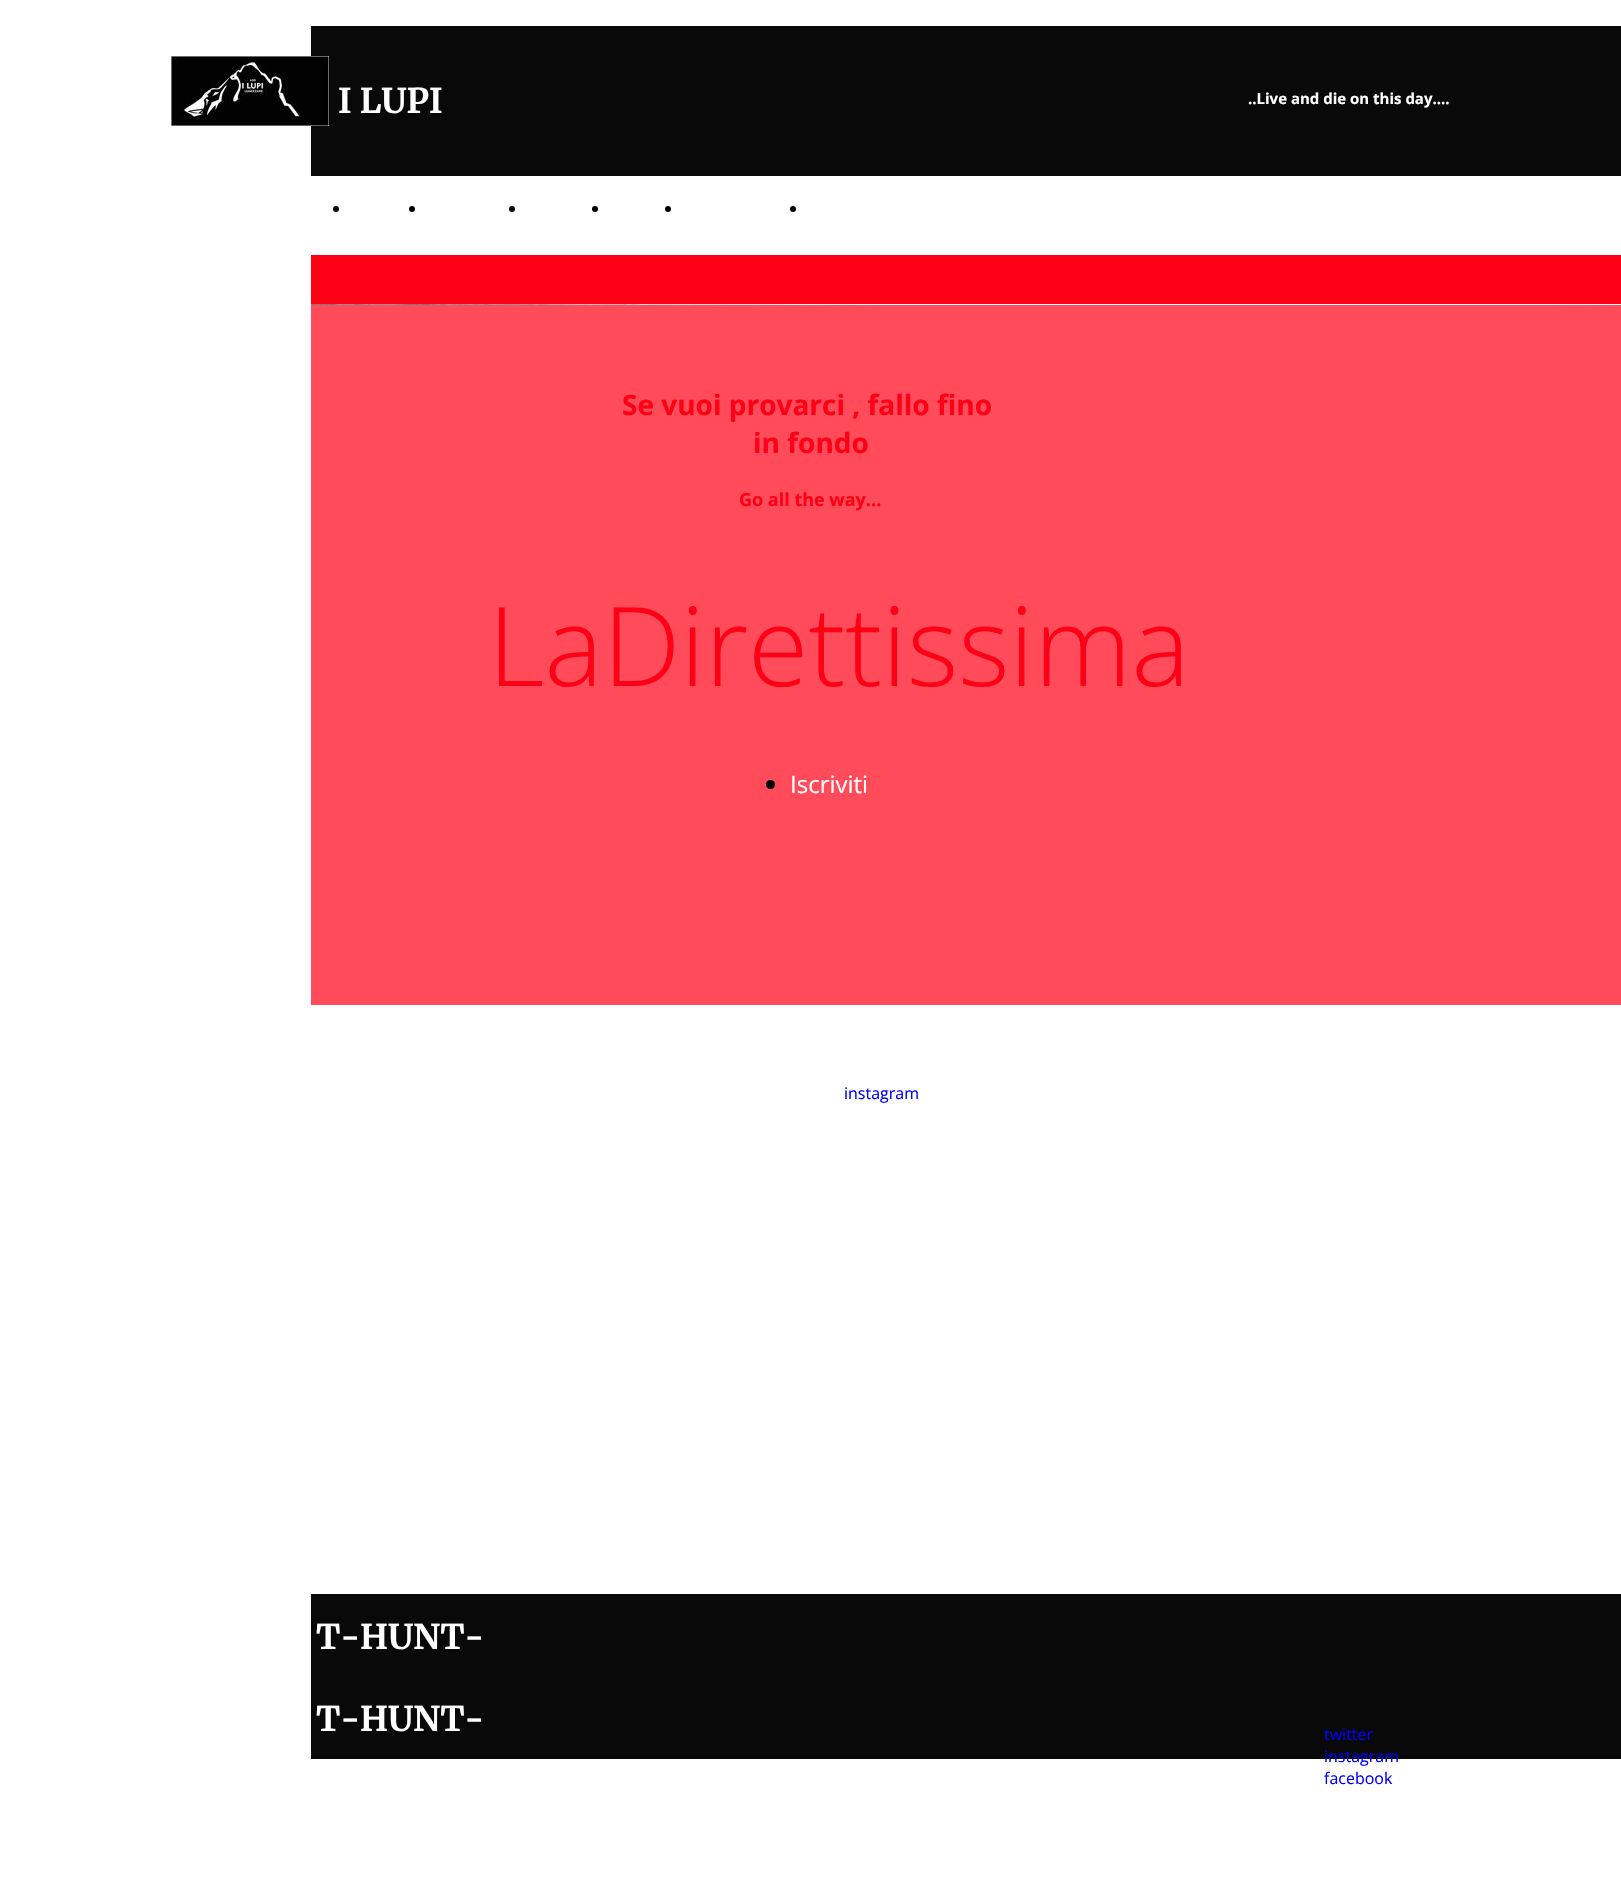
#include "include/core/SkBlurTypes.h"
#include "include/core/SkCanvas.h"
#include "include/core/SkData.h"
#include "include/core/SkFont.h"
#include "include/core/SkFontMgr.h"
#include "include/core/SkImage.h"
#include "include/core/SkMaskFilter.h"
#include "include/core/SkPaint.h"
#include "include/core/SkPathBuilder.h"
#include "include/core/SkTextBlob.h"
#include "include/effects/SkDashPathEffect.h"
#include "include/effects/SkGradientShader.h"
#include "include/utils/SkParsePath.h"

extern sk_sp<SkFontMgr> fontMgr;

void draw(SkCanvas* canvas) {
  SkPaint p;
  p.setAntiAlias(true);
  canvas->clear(SK_ColorWHITE);
  p.setColor(SkColorSetRGB(9, 9, 9));
  canvas->drawRect(SkRect::MakeLTRB(311, 26, 1621, 176), p);
  canvas->drawImageRect(SkImages::DeferredFromEncodedData(SkData::MakeFromFileName("images/1.png")), SkRect::MakeLTRB(171, 56, 329, 126), SkSamplingOptions());
  p.setColor(SK_ColorBLACK);
  canvas->drawCircle(336, 209, 3, p);
  canvas->drawCircle(412, 209, 3, p);
  canvas->drawCircle(512, 209, 3, p);
  canvas->drawCircle(595, 209, 3, p);
  canvas->drawCircle(668, 209, 3, p);
  canvas->drawCircle(793, 209, 3, p);
  p.setColor(SkColorSetRGB(254, 0, 21));
  canvas->drawRect(SkRect::MakeLTRB(311, 255, 1621, 304), p);
  canvas->drawImageRect(SkImages::DeferredFromEncodedData(SkData::MakeFromFileName("images/2.png")), SkRect::MakeLTRB(311, 304, 1621, 305), SkSamplingOptions());
  p.setColor(SkColorSetRGB(255, 75, 90));
  canvas->drawRect(SkRect::MakeLTRB(311, 305, 1621, 1005), p);
  p.setColor(SK_ColorBLACK);
  canvas->drawCircle(770.5f, 784.5f, 4.5f, p);
  p.setColor(SkColorSetRGB(9, 9, 9));
  canvas->drawRect(SkRect::MakeLTRB(311, 1594, 1621, 1759), p);
  SkFont font1(fontMgr->matchFamilyStyle("Merriweather", SkFontStyle::Bold()), 34);
  font1.setSubpixel(true);
  p.setColor(SK_ColorWHITE);
  canvas->drawString("I LUPI", 338, 113, font1, p);
  SkFont font2(fontMgr->matchFamilyStyle("Open Sans", SkFontStyle::Bold()), 15);
  font2.setSubpixel(true);
  canvas->drawString("..Live and die on this day....", 1248, 104, font2, p);
  SkFont font3(fontMgr->matchFamilyStyle("Open Sans", SkFontStyle::Bold()), 28);
  font3.setSubpixel(true);
  p.setColor(SkColorSetRGB(254, 0, 21));
  canvas->drawString("Se vuoi provarci , fallo fino", 622, 415, font3, p);
  canvas->drawString("in fondo", 753, 453, font3, p);
  SkFont font4(fontMgr->matchFamilyStyle("Open Sans", SkFontStyle::Bold()), 18);
  font4.setSubpixel(true);
  canvas->drawString("Go all the way...", 739, 506, font4, p);
  SkFont font5(fontMgr->matchFamilyStyle("Open Sans", SkFontStyle(300, SkFontStyle::kNormal_Width, SkFontStyle::kUpright_Slant)), 110);
  font5.setSubpixel(true);
  canvas->drawString("LaDirettissima", 488, 686, font5, p);
  SkFont font6(fontMgr->matchFamilyStyle("Open Sans", SkFontStyle::Normal()), 24);
  font6.setSubpixel(true);
  p.setColor(SK_ColorWHITE);
  canvas->drawString("Iscriviti", 790, 793, font6, p);
  SkFont font7(fontMgr->matchFamilyStyle("Open Sans", SkFontStyle::Normal()), 16);
  font7.setSubpixel(true);
  p.setColor(SkColorSetRGB(0, 0, 255));
  canvas->drawString("instagram", 844, 1099, font7, p);
  p.setColor(SK_ColorWHITE);
  canvas->drawString("T-HUNT-", 316, 1649, font1, p);
  canvas->drawString("T-HUNT-", 316, 1731, font1, p);
  p.setColor(SkColorSetRGB(0, 0, 255));
  canvas->drawString("twitter", 1324, 1740, font7, p);
  canvas->drawString("instagram", 1324, 1762, font7, p);
  canvas->drawString("facebook", 1324, 1784, font7, p);
}
